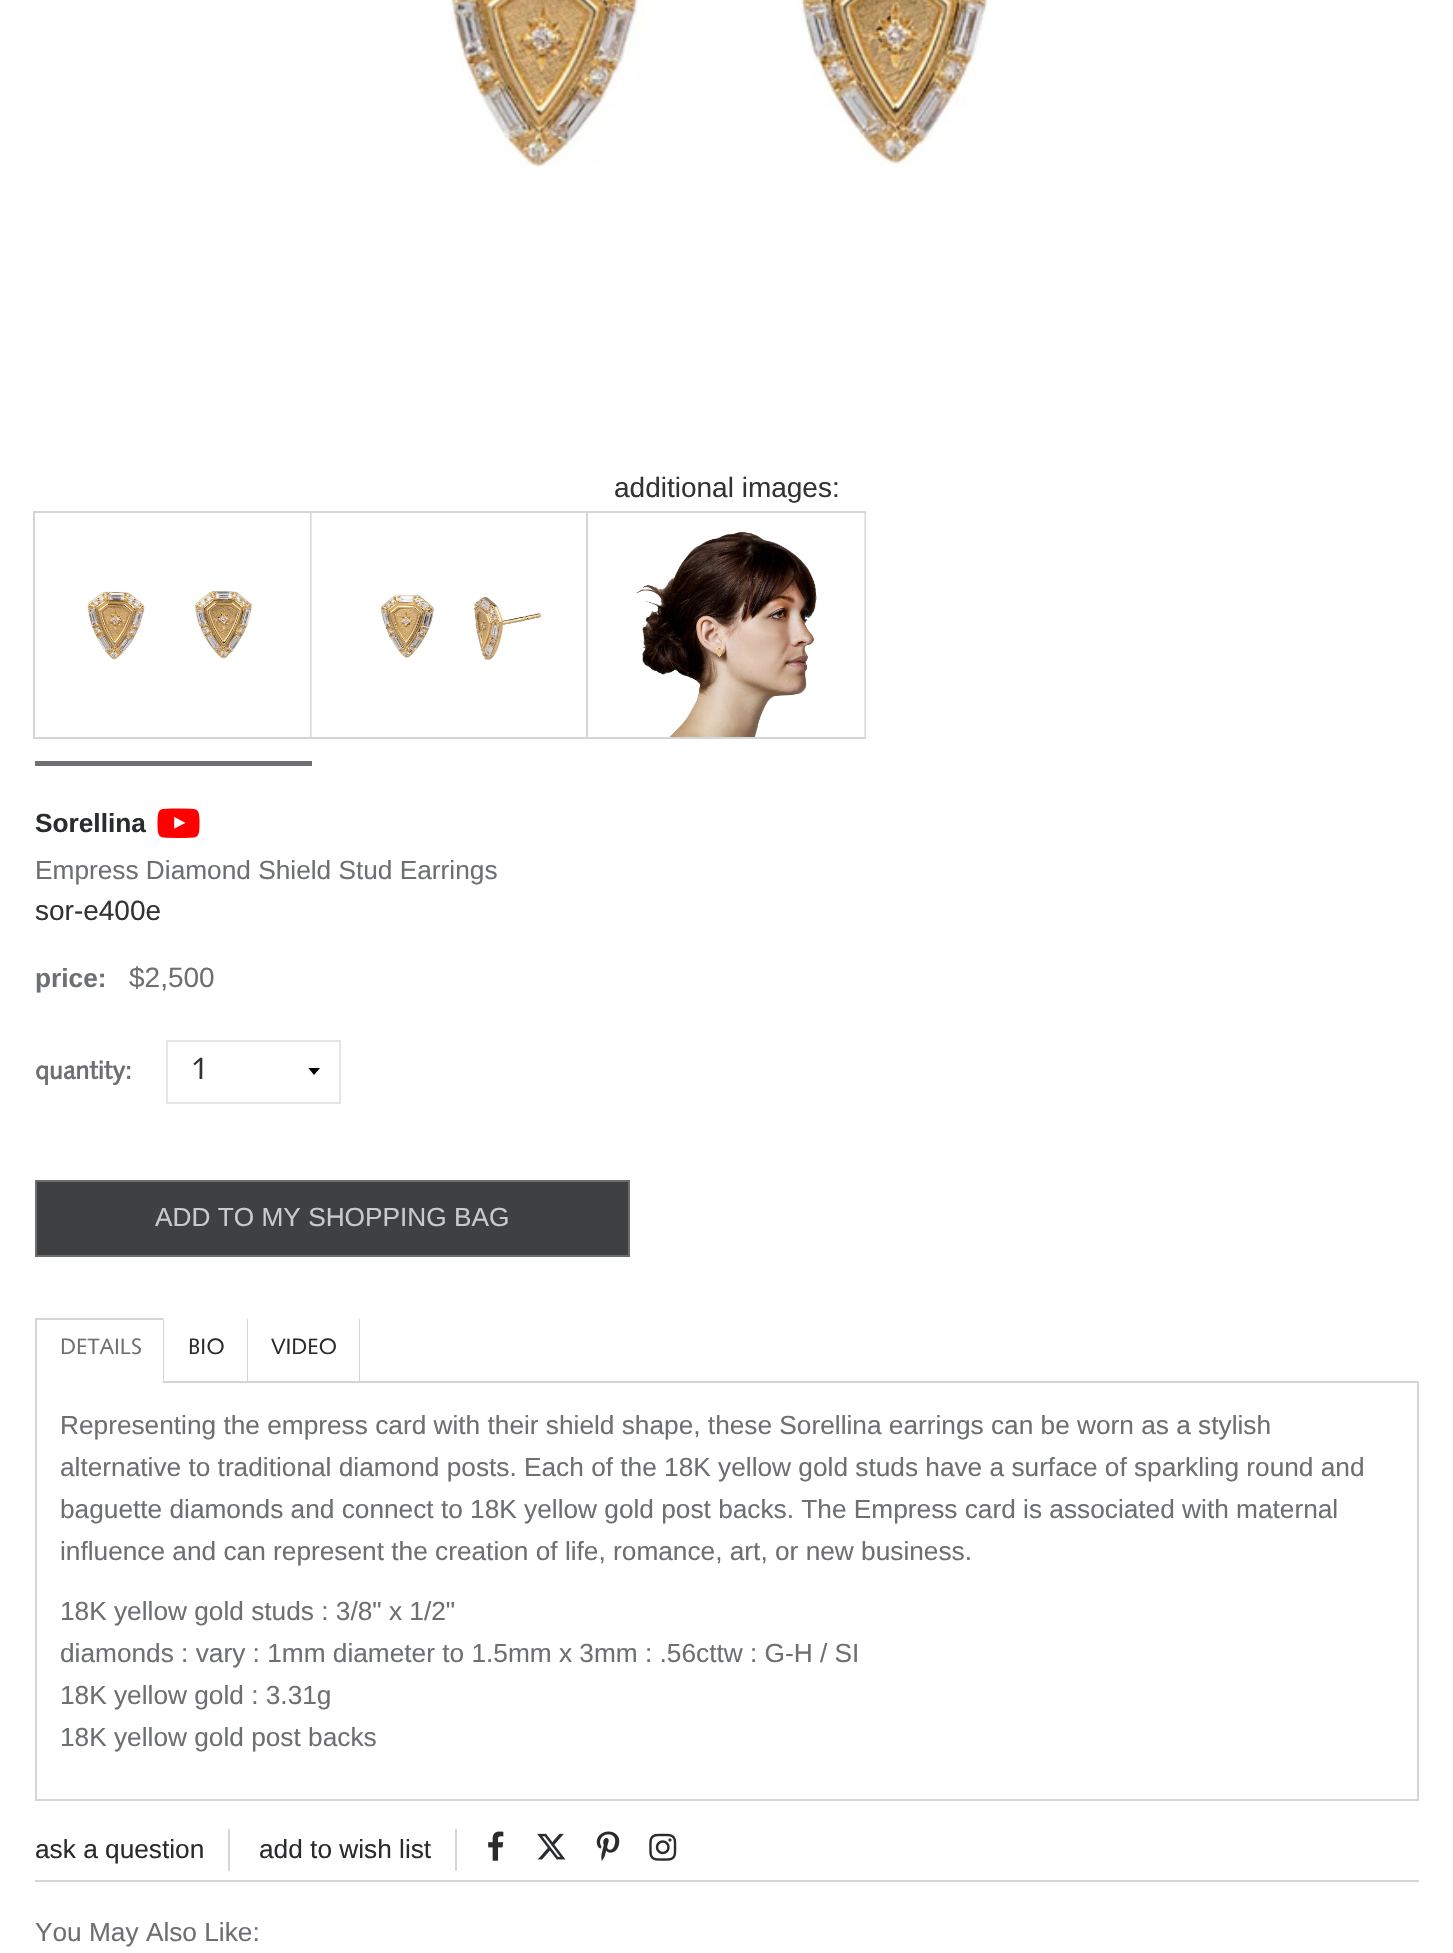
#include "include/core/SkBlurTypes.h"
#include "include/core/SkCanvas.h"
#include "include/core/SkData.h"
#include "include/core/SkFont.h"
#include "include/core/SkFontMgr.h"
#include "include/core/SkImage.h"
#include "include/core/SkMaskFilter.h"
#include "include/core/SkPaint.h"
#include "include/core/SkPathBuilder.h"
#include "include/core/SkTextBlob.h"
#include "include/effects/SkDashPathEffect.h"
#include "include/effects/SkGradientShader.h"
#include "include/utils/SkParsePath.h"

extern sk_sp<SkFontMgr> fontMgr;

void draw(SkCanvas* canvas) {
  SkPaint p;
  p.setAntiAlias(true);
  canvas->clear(SK_ColorWHITE);
  canvas->drawImageRect(SkImages::DeferredFromEncodedData(SkData::MakeFromFileName("images/1.png")), SkRect::MakeLTRB(448, 0, 990, 167), SkSamplingOptions());
  p.setColor(SkColorSetRGB(109, 111, 114));
  canvas->drawRect(SkRect::MakeLTRB(35, 761, 312, 766), p);
  p.setStyle(SkPaint::kStroke_Style);
  p.setStrokeWidth(2);
  p.setColor(SkColorSetRGB(212, 213, 213));
  canvas->drawRect(SkRect::MakeLTRB(34, 512, 311, 738), p);
  canvas->drawImageRect(SkImages::DeferredFromEncodedData(SkData::MakeFromFileName("images/2.png")), SkRect::MakeLTRB(87, 590, 252, 660), SkSamplingOptions());
  canvas->drawRect(SkRect::MakeLTRB(311, 512, 587, 738), p);
  canvas->drawImageRect(SkImages::DeferredFromEncodedData(SkData::MakeFromFileName("images/3.png")), SkRect::MakeLTRB(311, 513, 586, 737), SkSamplingOptions());
  canvas->drawRect(SkRect::MakeLTRB(587, 512, 865, 738), p);
  canvas->drawImageRect(SkImages::DeferredFromEncodedData(SkData::MakeFromFileName("images/4.png")), SkRect::MakeLTRB(636, 513, 865, 737), SkSamplingOptions());
  canvas->drawImageRect(SkImages::DeferredFromEncodedData(SkData::MakeFromFileName("images/5.png")), SkRect::MakeLTRB(157, 808, 200, 838), SkSamplingOptions());
  canvas->save();
  canvas->clipRect(SkRect::MakeLTRB(308, 1068, 322, 1076));
  p.setStyle(SkPaint::kFill_Style);
  p.setColor(SK_ColorBLACK);
  canvas->drawPath(SkPathBuilder().moveTo(308, 1067.5f).lineTo(314, 1075).lineTo(320.5f, 1067.5f).close().detach(), p);
  canvas->restore();
  p.setStyle(SkPaint::kStroke_Style);
  p.setColor(SkColorSetRGB(229, 229, 229));
  canvas->drawRect(SkRect::MakeLTRB(167, 1041, 340, 1103), p);
  p.setStyle(SkPaint::kFill_Style);
  p.setColor(SkColorSetRGB(63, 64, 66));
  canvas->drawRect(SkRect::MakeLTRB(36, 1181, 629, 1256), p);
  p.setStyle(SkPaint::kStroke_Style);
  p.setColor(SkColorSetRGB(108, 110, 110));
  canvas->drawRect(SkRect::MakeLTRB(36, 1181, 629, 1256), p);
  p.setColor(SkColorSetRGB(212, 213, 213));
  canvas->drawRect(SkRect::MakeLTRB(36, 1382, 1418, 1800), p);
  p.setStyle(SkPaint::kFill_Style);
  p.setColor(SK_ColorWHITE);
  canvas->drawRect(SkRect::MakeLTRB(37, 1381, 163, 1383), p);
  p.setColor(SkColorSetRGB(212, 213, 213));
  canvas->drawRect(SkRect::MakeLTRB(35, 1318, 163, 1320), p);
  canvas->drawRect(SkRect::MakeLTRB(35, 1318, 37, 1383), p);
  canvas->drawPath(SkPathBuilder().moveTo(163, 1382).lineTo(163, 1318).lineTo(164, 1320).lineTo(164, 1381).close().detach(), p);
  canvas->drawPath(SkPathBuilder().moveTo(360, 1318).lineTo(360, 1382).lineTo(359, 1381).lineTo(359, 1320).close().detach(), p);
  canvas->drawPath(SkPathBuilder().moveTo(247, 1382).lineTo(247, 1318).lineTo(248, 1320).lineTo(248, 1381).close().detach(), p);
  canvas->drawRect(SkRect::MakeLTRB(35, 1880, 1419, 1882), p);
  canvas->drawRect(SkRect::MakeLTRB(228, 1829, 230, 1871), p);
  canvas->drawRect(SkRect::MakeLTRB(455, 1829, 457, 1871), p);
  canvas->drawImageRect(SkImages::DeferredFromEncodedData(SkData::MakeFromFileName("images/6.png")), SkRect::MakeLTRB(488, 1831, 504, 1861), SkSamplingOptions());
  canvas->drawImageRect(SkImages::DeferredFromEncodedData(SkData::MakeFromFileName("images/7.png")), SkRect::MakeLTRB(537, 1833, 566, 1860), SkSamplingOptions());
  canvas->drawImageRect(SkImages::DeferredFromEncodedData(SkData::MakeFromFileName("images/8.png")), SkRect::MakeLTRB(596, 1831, 620, 1861), SkSamplingOptions());
  canvas->drawImageRect(SkImages::DeferredFromEncodedData(SkData::MakeFromFileName("images/9.png")), SkRect::MakeLTRB(649, 1833, 677, 1861), SkSamplingOptions());
  SkFont font1(fontMgr->matchFamilyStyle("Liberation Sans", SkFontStyle::Normal()), 28);
  font1.setSubpixel(true);
  p.setColor(SkColorSetRGB(51, 51, 51));
  canvas->drawString("additional images:", 614, 497, font1, p);
  SkFont font2(fontMgr->matchFamilyStyle("Liberation Sans", SkFontStyle::Bold()), 26.25f);
  font2.setSubpixel(true);
  p.setColor(SkColorSetRGB(42, 43, 45));
  canvas->drawString("Sorellina", 35, 832, font2, p);
  SkFont font3(fontMgr->matchFamilyStyle("Liberation Sans", SkFontStyle::Normal()), 26.25f);
  font3.setSubpixel(true);
  p.setColor(SkColorSetRGB(109, 111, 114));
  canvas->drawString("Empress Diamond Shield Stud Earrings", 35, 879, font3, p);
  p.setColor(SkColorSetRGB(51, 51, 51));
  canvas->drawString("sor-e400e", 35, 920, font1, p);
  p.setColor(SkColorSetRGB(109, 111, 114));
  canvas->drawString("price:", 35, 987, font2, p);
  canvas->drawString("$2,500", 129, 987, font1, p);
  SkFont font4(fontMgr->matchFamilyStyle("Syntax", SkFontStyle::Bold()), 26.25f);
  font4.setSubpixel(true);
  canvas->drawString("quantity:", 35, 1079, font4, p);
  SkFont font5(fontMgr->matchFamilyStyle("Syntax", SkFontStyle::Normal()), 32);
  font5.setSubpixel(true);
  p.setColor(SkColorSetRGB(51, 51, 51));
  canvas->drawString("1", 190, 1079, font5, p);
  p.setColor(SkColorSetRGB(202, 202, 201));
  canvas->drawString("ADD TO MY SHOPPING BAG", 155, 1226, font3, p);
  SkFont font6(fontMgr->matchFamilyStyle("Syntax", SkFontStyle::Normal()), 23);
  font6.setSubpixel(true);
  p.setColor(SkColorSetRGB(109, 111, 114));
  canvas->drawString("DETAILS", 60, 1354, font6, p);
  p.setColor(SkColorSetRGB(42, 43, 45));
  canvas->drawString("BIO", 188, 1354, font6, p);
  canvas->drawString("VIDEO", 271, 1354, font6, p);
  p.setColor(SkColorSetRGB(109, 111, 114));
  canvas->drawString("Representing the empress card with their shield shape, these Sorellina earrings can be worn as a stylish", 60, 1434, font3, p);
  canvas->drawString("alternative to traditional diamond posts. Each of the 18K yellow gold studs have a surface of sparkling round and", 60, 1476, font3, p);
  canvas->drawString("baguette diamonds and connect to 18K yellow gold post backs. The Empress card is associated with maternal", 60, 1518, font3, p);
  canvas->drawString("influence and can represent the creation of life, romance, art, or new business.", 60, 1560, font3, p);
  canvas->drawString("18K yellow gold studs : 3/8\" x 1/2\"", 60, 1620, font3, p);
  canvas->drawString("diamonds : vary : 1mm diameter to 1.5mm x 3mm : .56cttw : G-H / SI", 60, 1662, font3, p);
  canvas->drawString("18K yellow gold : 3.31g", 60, 1704, font3, p);
  canvas->drawString("18K yellow gold post backs", 60, 1746, font3, p);
  p.setColor(SkColorSetRGB(42, 43, 45));
  canvas->drawString("ask a question", 35, 1858, font3, p);
  canvas->drawString("add to wish list", 259, 1858, font3, p);
  p.setColor(SkColorSetRGB(109, 111, 114));
  canvas->drawString("You May Also Like:", 35, 1941, font3, p);
}
